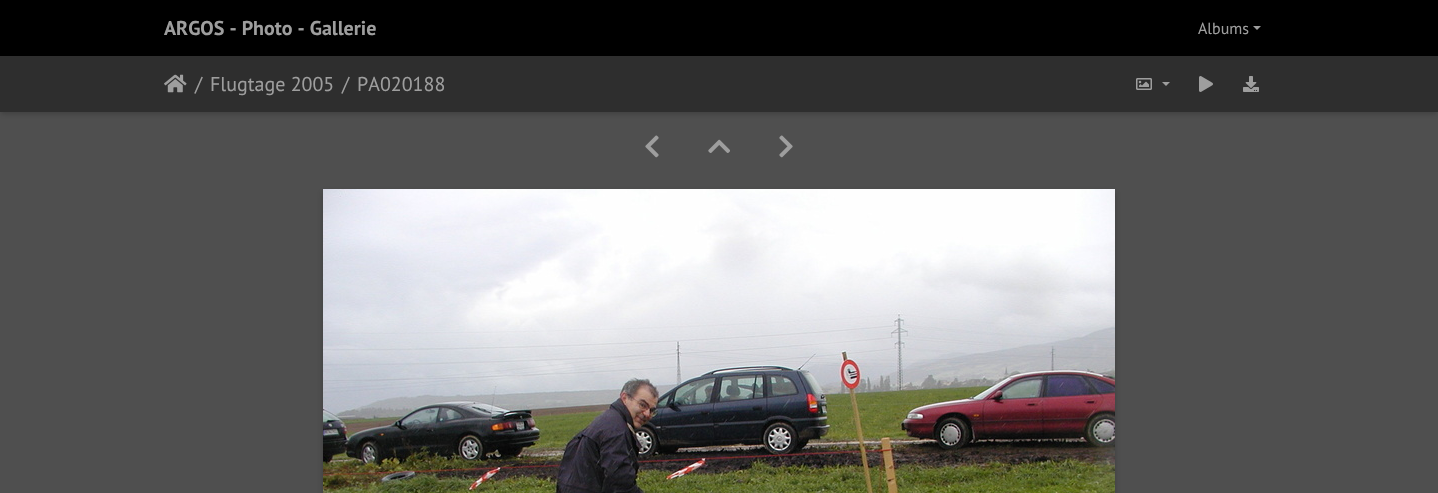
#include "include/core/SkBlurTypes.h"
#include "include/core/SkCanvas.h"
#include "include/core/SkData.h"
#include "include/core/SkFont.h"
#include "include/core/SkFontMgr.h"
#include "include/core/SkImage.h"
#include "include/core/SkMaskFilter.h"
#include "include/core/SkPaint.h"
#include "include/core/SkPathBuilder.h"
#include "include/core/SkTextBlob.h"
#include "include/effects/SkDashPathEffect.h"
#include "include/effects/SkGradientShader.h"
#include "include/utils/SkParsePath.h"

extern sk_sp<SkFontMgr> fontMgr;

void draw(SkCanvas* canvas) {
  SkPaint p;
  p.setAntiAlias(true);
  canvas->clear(SkColorSetRGB(79, 79, 79));
  p.setColor(SkColorSetARGB(51, 0, 0, 0));
  p.setMaskFilter(SkMaskFilter::MakeBlur(kNormal_SkBlurStyle, 2.5f));
  canvas->drawRect(SkRect::MakeLTRB(1, 60, 1437, 114), p);
  p.setMaskFilter(nullptr);
  p.setColor(SK_ColorBLACK);
  canvas->drawRect(SkRect::MakeLTRB(0, 0, 1438, 56), p);
  p.setColor(SkColorSetRGB(158, 158, 158));
  canvas->drawPath(SkPathBuilder().moveTo(1253, 26).lineTo(1261, 26).lineTo(1257, 30).close().detach(), p);
  p.setColor(SkColorSetRGB(46, 46, 46));
  canvas->drawRect(SkRect::MakeLTRB(0, 56, 1438, 112), p);
  canvas->drawImageRect(SkImages::DeferredFromEncodedData(SkData::MakeFromFileName("images/1.png")), SkRect::MakeLTRB(164, 74, 187, 93), SkSamplingOptions());
  canvas->drawImageRect(SkImages::DeferredFromEncodedData(SkData::MakeFromFileName("images/2.png")), SkRect::MakeLTRB(1136, 78, 1152, 90), SkSamplingOptions());
  p.setColor(SkColorSetRGB(158, 158, 158));
  canvas->drawPath(SkPathBuilder().moveTo(1162, 82).lineTo(1170, 82).lineTo(1166, 86).close().detach(), p);
  canvas->drawImageRect(SkImages::DeferredFromEncodedData(SkData::MakeFromFileName("images/3.png")), SkRect::MakeLTRB(1199, 76, 1213, 92), SkSamplingOptions());
  canvas->drawImageRect(SkImages::DeferredFromEncodedData(SkData::MakeFromFileName("images/4.png")), SkRect::MakeLTRB(1243, 76, 1259, 92), SkSamplingOptions());
  canvas->drawImageRect(SkImages::DeferredFromEncodedData(SkData::MakeFromFileName("images/5.png")), SkRect::MakeLTRB(645, 135, 659, 158), SkSamplingOptions());
  canvas->drawImageRect(SkImages::DeferredFromEncodedData(SkData::MakeFromFileName("images/6.png")), SkRect::MakeLTRB(708, 139, 730, 153), SkSamplingOptions());
  canvas->drawImageRect(SkImages::DeferredFromEncodedData(SkData::MakeFromFileName("images/7.png")), SkRect::MakeLTRB(779, 135, 793, 158), SkSamplingOptions());
  p.setColor(SkColorSetARGB(59, 0, 0, 0));
  p.setMaskFilter(SkMaskFilter::MakeBlur(kNormal_SkBlurStyle, 3));
  canvas->drawRect(SkRect::MakeLTRB(323, 192, 1115, 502), p);
  p.setMaskFilter(nullptr);
  canvas->drawImageRect(SkImages::DeferredFromEncodedData(SkData::MakeFromFileName("images/8.png")), SkRect::MakeLTRB(323, 189, 1115, 493), SkSamplingOptions());
  SkFont font1(fontMgr->matchFamilyStyle("PT Sans", SkFontStyle::Bold()), 20);
  font1.setSubpixel(true);
  p.setColor(SkColorSetRGB(158, 158, 158));
  canvas->drawString("ARGOS - Photo - Gallerie", 164, 35, font1, p);
  SkFont font2(fontMgr->matchFamilyStyle("PT Sans", SkFontStyle::Normal()), 16);
  font2.setSubpixel(true);
  canvas->drawString("Albums", 1198, 34, font2, p);
  SkFont font3(fontMgr->matchFamilyStyle("PT Sans", SkFontStyle::Normal()), 20);
  font3.setSubpixel(true);
  canvas->drawString("/", 195, 91, font3, p);
  canvas->drawString("Flugtage 2005", 210, 91, font3, p);
  canvas->drawString("/", 342, 91, font3, p);
  canvas->drawString("PA020188", 357, 91, font3, p);
}
